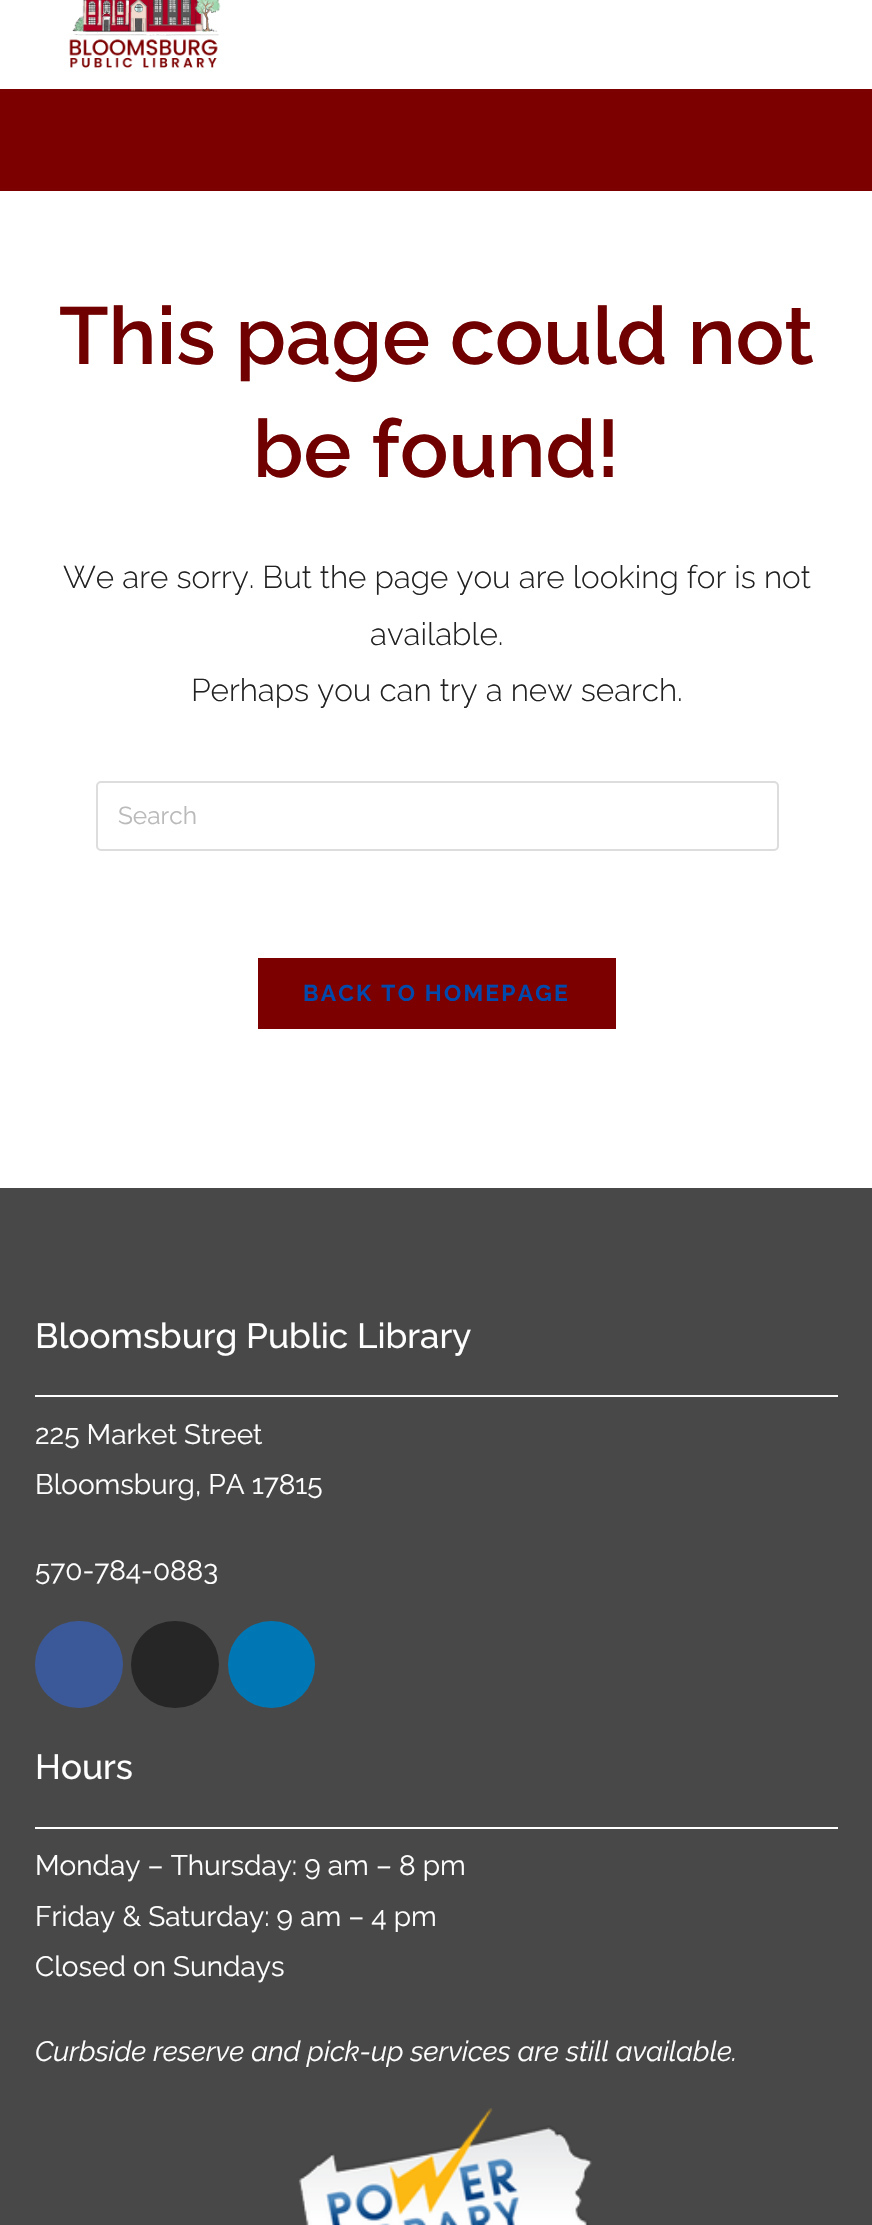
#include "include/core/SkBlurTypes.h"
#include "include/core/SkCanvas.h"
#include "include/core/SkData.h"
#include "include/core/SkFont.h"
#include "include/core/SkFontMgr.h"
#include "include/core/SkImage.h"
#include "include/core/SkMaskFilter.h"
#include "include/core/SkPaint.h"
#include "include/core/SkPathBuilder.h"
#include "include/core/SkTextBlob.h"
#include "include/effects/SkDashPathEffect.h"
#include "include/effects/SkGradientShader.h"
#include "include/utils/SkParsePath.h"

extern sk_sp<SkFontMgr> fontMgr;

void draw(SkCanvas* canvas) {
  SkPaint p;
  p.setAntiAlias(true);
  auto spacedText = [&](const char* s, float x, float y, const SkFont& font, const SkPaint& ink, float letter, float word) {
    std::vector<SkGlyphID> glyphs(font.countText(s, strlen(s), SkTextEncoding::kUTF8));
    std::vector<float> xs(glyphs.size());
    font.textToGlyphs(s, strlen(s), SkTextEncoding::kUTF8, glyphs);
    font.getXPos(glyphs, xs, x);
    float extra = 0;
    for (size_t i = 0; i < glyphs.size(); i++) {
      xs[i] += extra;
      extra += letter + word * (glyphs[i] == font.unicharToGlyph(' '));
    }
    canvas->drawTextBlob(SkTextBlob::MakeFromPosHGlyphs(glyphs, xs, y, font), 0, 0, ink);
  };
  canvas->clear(SK_ColorWHITE);
  canvas->drawImageRect(SkImages::DeferredFromEncodedData(SkData::MakeFromFileName("images/1.png")), SkRect::MakeLTRB(69, 0, 221, 68), SkSamplingOptions());
  p.setColor(SkColorSetRGB(124, 0, 0));
  canvas->drawRect(SkRect::MakeLTRB(0, 89, 872, 191), p);
  p.setStyle(SkPaint::kStroke_Style);
  p.setStrokeWidth(2);
  p.setColor(SkColorSetRGB(221, 221, 221));
  canvas->drawRoundRect(SkRect::MakeLTRB(97, 782, 778, 850), 4, 4, p);
  p.setStyle(SkPaint::kFill_Style);
  p.setColor(SkColorSetRGB(124, 0, 0));
  canvas->drawRect(SkRect::MakeLTRB(258, 958, 616, 1029), p);
  p.setColor(SkColorSetRGB(72, 72, 72));
  canvas->drawRect(SkRect::MakeLTRB(0, 1188, 872, 2225), p);
  p.setColor(SK_ColorWHITE);
  canvas->drawRect(SkRect::MakeLTRB(35, 1395, 838, 1397), p);
  p.setColor(SkColorSetRGB(59, 89, 152));
  canvas->drawRoundRect(SkRect::MakeLTRB(35, 1621, 123, 1708), 43.5f, 43.5f, p);
  p.setColor(SkColorSetRGB(38, 38, 38));
  canvas->drawRoundRect(SkRect::MakeLTRB(131, 1621, 219, 1708), 43.5f, 43.5f, p);
  p.setColor(SkColorSetRGB(0, 119, 181));
  canvas->drawCircle(271.5f, 1664.5f, 43.5f, p);
  p.setColor(SK_ColorWHITE);
  canvas->drawRect(SkRect::MakeLTRB(35, 1827, 838, 1829), p);
  canvas->drawImageRect(SkImages::DeferredFromEncodedData(SkData::MakeFromFileName("images/2.png")), SkRect::MakeLTRB(298, 2108, 592, 2225), SkSamplingOptions());
  SkFont font1(fontMgr->matchFamilyStyle("Raleway", SkFontStyle(600, SkFontStyle::kNormal_Width, SkFontStyle::kUpright_Slant)), 80.5f);
  font1.setSubpixel(true);
  p.setColor(SkColorSetRGB(112, 0, 0));
  canvas->drawString("This page could not", 59, 364, font1, p);
  canvas->drawString("be found!", 253, 477, font1, p);
  SkFont font2(fontMgr->matchFamilyStyle("Raleway", SkFontStyle(300, SkFontStyle::kNormal_Width, SkFontStyle::kUpright_Slant)), 31.5f);
  font2.setSubpixel(true);
  p.setColor(SkColorSetRGB(34, 34, 34));
  canvas->drawString("We are sorry. But the page you are looking for is not", 63, 588, font2, p);
  canvas->drawString("available.", 370, 645, font2, p);
  canvas->drawString("Perhaps you can try a new search.", 191, 701, font2, p);
  SkFont font3(fontMgr->matchFamilyStyle("Raleway", SkFontStyle::Normal()), 24.5f);
  font3.setSubpixel(true);
  p.setColor(SkColorSetRGB(186, 186, 186));
  canvas->drawString("Search", 118, 824, font3, p);
  SkFont font4(fontMgr->matchFamilyStyle("Raleway", SkFontStyle::Bold()), 22.75f);
  font4.setSubpixel(true);
  p.setColor(SkColorSetRGB(0, 74, 173));
  spacedText("BACK TO HOMEPAGE", 303, 1001, font4, p, 2.25f, 0);
  SkFont font5(fontMgr->matchFamilyStyle("Raleway", SkFontStyle(500, SkFontStyle::kNormal_Width, SkFontStyle::kUpright_Slant)), 35);
  font5.setSubpixel(true);
  p.setColor(SK_ColorWHITE);
  canvas->drawString("Bloomsburg Public Library", 35, 1348, font5, p);
  SkFont font6(fontMgr->matchFamilyStyle("Raleway", SkFontStyle::Normal()), 28);
  font6.setSubpixel(true);
  canvas->drawString("225 Market Street", 35, 1444, font6, p);
  canvas->drawString("Bloomsburg, PA 17815", 35, 1494, font6, p);
  canvas->drawString("570-784-0883", 35, 1580, font6, p);
  canvas->drawString("Hours", 35, 1779, font5, p);
  canvas->drawString("Monday – Thursday: 9 am – 8 pm", 35, 1875, font6, p);
  canvas->drawString("Friday & Saturday: 9 am – 4 pm", 35, 1926, font6, p);
  canvas->drawString("Closed on Sundays", 35, 1976, font6, p);
  SkFont font7(fontMgr->matchFamilyStyle("Raleway", SkFontStyle::Italic()), 28);
  font7.setSubpixel(true);
  canvas->drawString("Curbside reserve and pick-up services are still available.", 35, 2061, font7, p);
}
